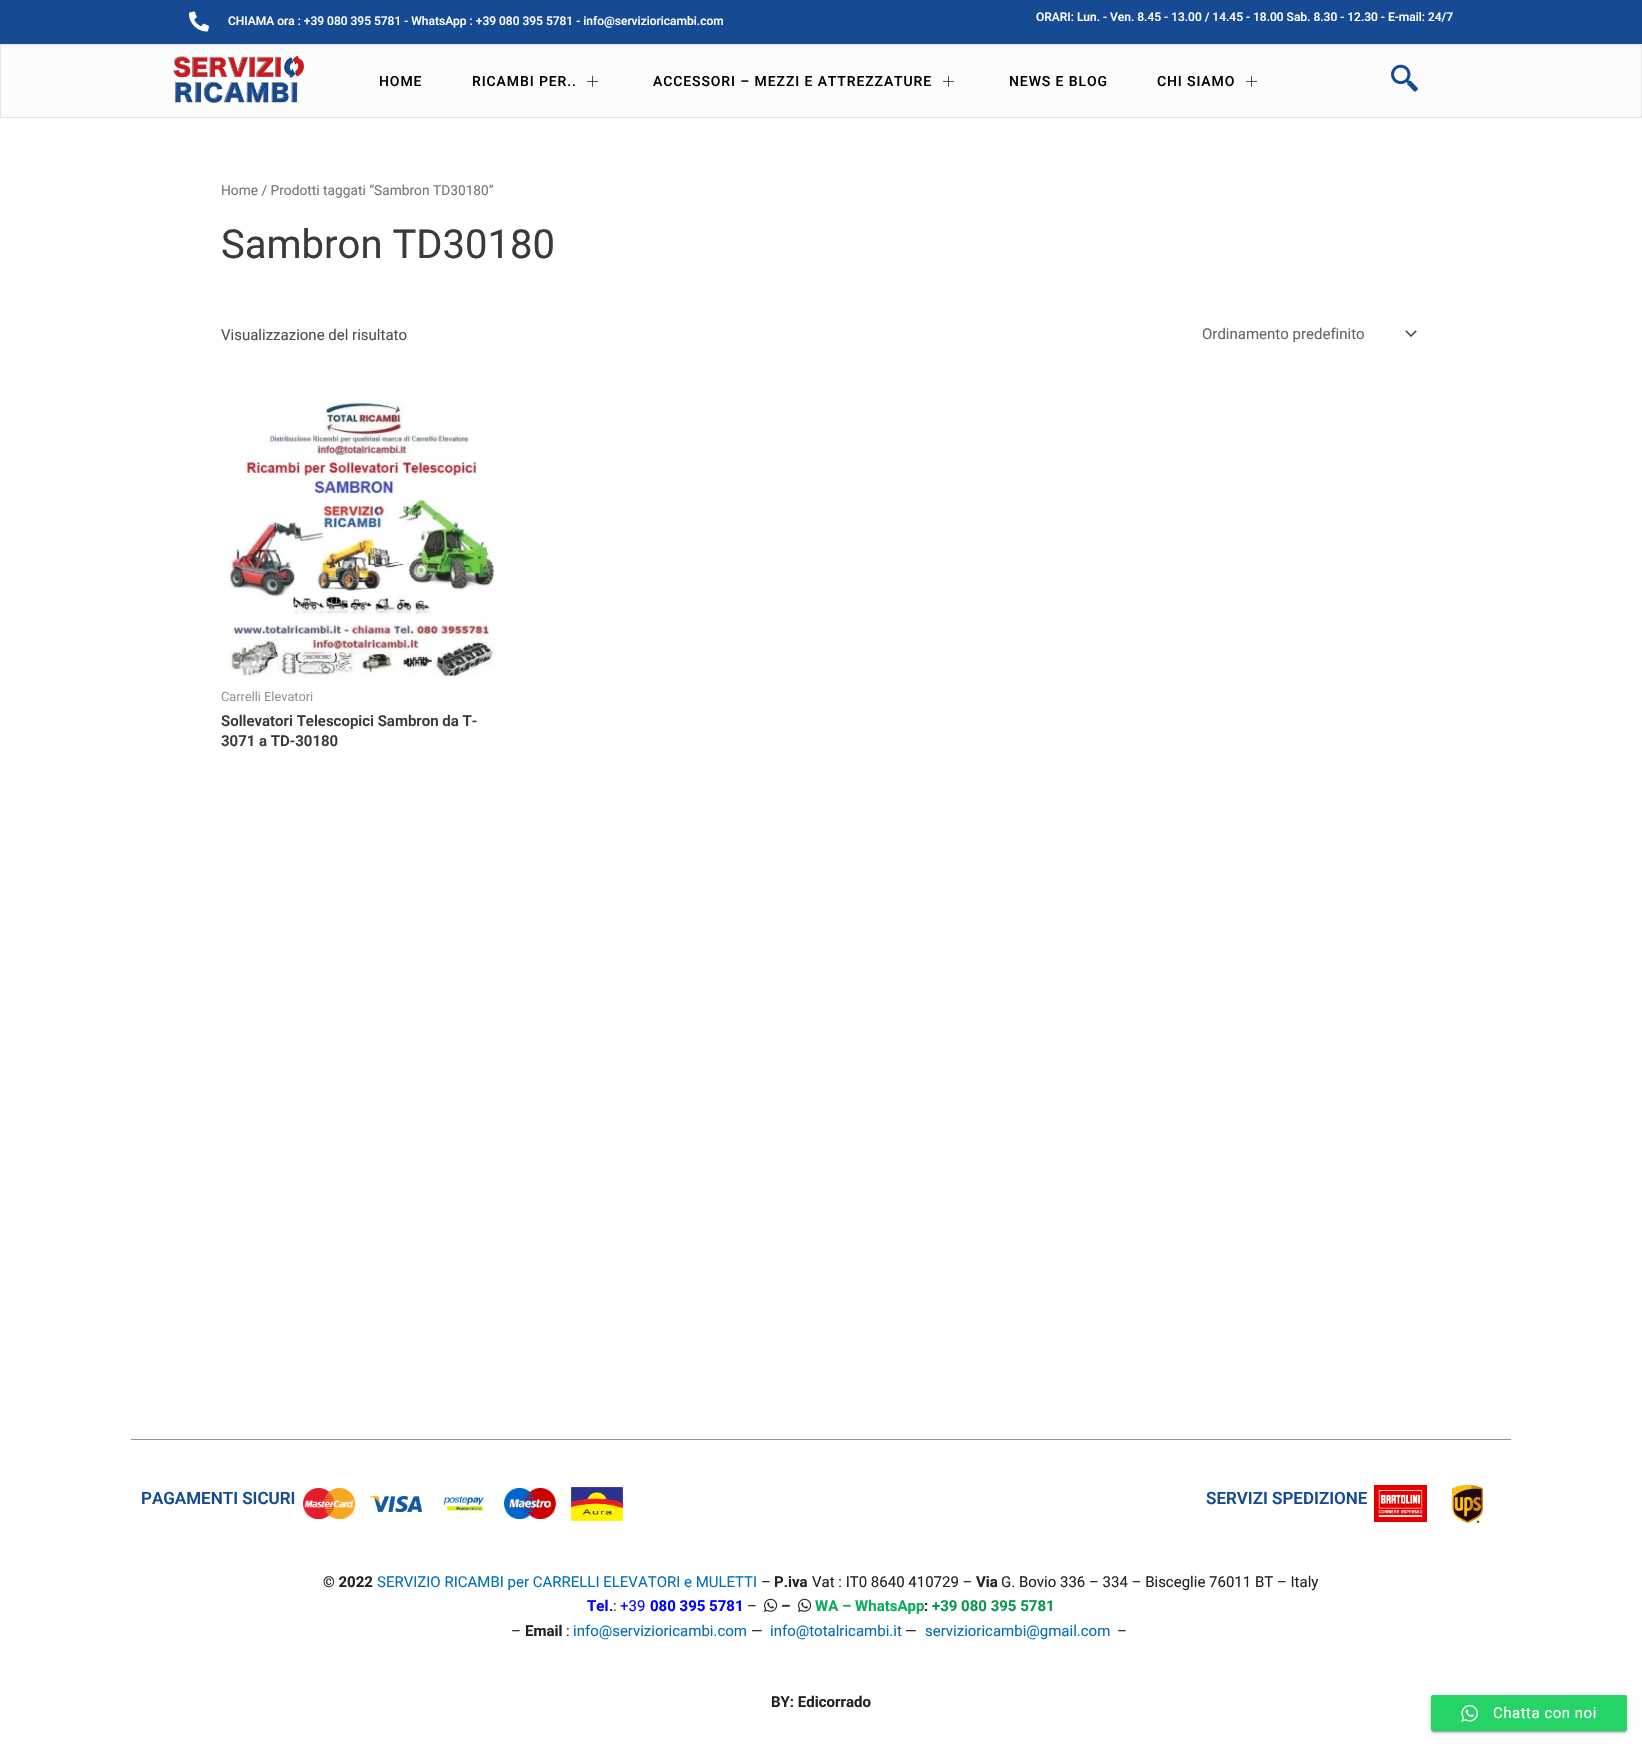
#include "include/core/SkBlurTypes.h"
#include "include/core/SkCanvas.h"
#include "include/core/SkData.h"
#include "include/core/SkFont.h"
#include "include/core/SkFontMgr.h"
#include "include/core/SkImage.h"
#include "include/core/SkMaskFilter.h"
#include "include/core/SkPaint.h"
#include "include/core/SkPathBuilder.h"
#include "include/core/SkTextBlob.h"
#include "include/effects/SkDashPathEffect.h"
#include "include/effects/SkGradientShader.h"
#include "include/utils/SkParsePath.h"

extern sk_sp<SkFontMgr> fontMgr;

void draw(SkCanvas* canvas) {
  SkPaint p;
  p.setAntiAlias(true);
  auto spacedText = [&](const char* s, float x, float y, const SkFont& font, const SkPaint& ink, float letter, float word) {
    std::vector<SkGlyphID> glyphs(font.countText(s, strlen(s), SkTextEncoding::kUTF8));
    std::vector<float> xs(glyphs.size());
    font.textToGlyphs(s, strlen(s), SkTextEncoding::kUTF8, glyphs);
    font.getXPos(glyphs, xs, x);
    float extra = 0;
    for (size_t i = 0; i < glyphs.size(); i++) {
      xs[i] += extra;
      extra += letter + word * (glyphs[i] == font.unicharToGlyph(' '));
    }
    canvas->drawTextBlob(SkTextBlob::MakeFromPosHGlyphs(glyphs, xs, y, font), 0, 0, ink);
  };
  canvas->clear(SK_ColorWHITE);
  p.setColor(SkColorSetRGB(22, 75, 148));
  canvas->drawRect(SkRect::MakeLTRB(0, 0, 1642, 44), p);
  canvas->drawImageRect(SkImages::DeferredFromEncodedData(SkData::MakeFromFileName("images/1.png")), SkRect::MakeLTRB(189, 11, 209, 32), SkSamplingOptions());
  p.setColor(SkColorSetRGB(252, 252, 252));
  canvas->drawRect(SkRect::MakeLTRB(0.5f, 44.5f, 1641.5f, 117.5f), p);
  p.setStyle(SkPaint::kStroke_Style);
  p.setStrokeWidth(1);
  p.setColor(SkColorSetRGB(228, 228, 228));
  canvas->drawRect(SkRect::MakeLTRB(0.5f, 44.5f, 1641.5f, 117.5f), p);
  canvas->drawImageRect(SkImages::DeferredFromEncodedData(SkData::MakeFromFileName("images/2.png")), SkRect::MakeLTRB(173, 55, 305, 104), SkSamplingOptions());
  canvas->drawImageRect(SkImages::DeferredFromEncodedData(SkData::MakeFromFileName("images/3.png")), SkRect::MakeLTRB(587, 75, 598, 87), SkSamplingOptions());
  canvas->drawImageRect(SkImages::DeferredFromEncodedData(SkData::MakeFromFileName("images/3.png")), SkRect::MakeLTRB(943, 75, 954, 87), SkSamplingOptions());
  canvas->drawImageRect(SkImages::DeferredFromEncodedData(SkData::MakeFromFileName("images/3.png")), SkRect::MakeLTRB(1246, 75, 1257, 87), SkSamplingOptions());
  canvas->drawImageRect(SkImages::DeferredFromEncodedData(SkData::MakeFromFileName("images/4.png")), SkRect::MakeLTRB(1391, 64, 1418, 92), SkSamplingOptions());
  canvas->drawImageRect(SkImages::DeferredFromEncodedData(SkData::MakeFromFileName("images/5.png")), SkRect::MakeLTRB(1405, 330, 1417, 337), SkSamplingOptions());
  canvas->drawImageRect(SkImages::DeferredFromEncodedData(SkData::MakeFromFileName("images/6.png")), SkRect::MakeLTRB(228, 400, 495, 677), SkSamplingOptions());
  p.setStyle(SkPaint::kFill_Style);
  p.setColor(SkColorSetRGB(147, 147, 147));
  canvas->drawRect(SkRect::MakeLTRB(131, 1439, 1511, 1440), p);
  canvas->drawImageRect(SkImages::DeferredFromEncodedData(SkData::MakeFromFileName("images/7.png")), SkRect::MakeLTRB(303, 1488, 355, 1519), SkSamplingOptions());
  canvas->drawImageRect(SkImages::DeferredFromEncodedData(SkData::MakeFromFileName("images/8.png")), SkRect::MakeLTRB(370, 1496, 422, 1512), SkSamplingOptions());
  canvas->drawImageRect(SkImages::DeferredFromEncodedData(SkData::MakeFromFileName("images/9.png")), SkRect::MakeLTRB(443, 1496, 484, 1511), SkSamplingOptions());
  canvas->drawImageRect(SkImages::DeferredFromEncodedData(SkData::MakeFromFileName("images/10.png")), SkRect::MakeLTRB(504, 1488, 556, 1519), SkSamplingOptions());
  canvas->drawImageRect(SkImages::DeferredFromEncodedData(SkData::MakeFromFileName("images/11.png")), SkRect::MakeLTRB(571, 1487, 623, 1521), SkSamplingOptions());
  canvas->drawImageRect(SkImages::DeferredFromEncodedData(SkData::MakeFromFileName("images/12.png")), SkRect::MakeLTRB(1374, 1485, 1427, 1522), SkSamplingOptions());
  canvas->drawImageRect(SkImages::DeferredFromEncodedData(SkData::MakeFromFileName("images/13.png")), SkRect::MakeLTRB(1452, 1485, 1483, 1523), SkSamplingOptions());
  canvas->drawImageRect(SkImages::DeferredFromEncodedData(SkData::MakeFromFileName("images/14.png")), SkRect::MakeLTRB(764, 1598, 778, 1612), SkSamplingOptions());
  canvas->drawImageRect(SkImages::DeferredFromEncodedData(SkData::MakeFromFileName("images/14.png")), SkRect::MakeLTRB(798, 1598, 812, 1612), SkSamplingOptions());
  p.setColor(SkColorSetARGB(51, 0, 0, 0));
  p.setMaskFilter(SkMaskFilter::MakeBlur(kNormal_SkBlurStyle, 0.5f));
  canvas->drawRect(SkRect::MakeLTRB(1433, 1700, 1625, 1732), p);
  p.setMaskFilter(nullptr);
  p.setColor(SkColorSetARGB(31, 0, 0, 0));
  p.setMaskFilter(SkMaskFilter::MakeBlur(kNormal_SkBlurStyle, 2.5f));
  canvas->drawRoundRect(SkRect::MakeLTRB(1431, 1696, 1627, 1732), 2, 2, p);
  p.setMaskFilter(nullptr);
  p.setColor(SkColorSetARGB(36, 0, 0, 0));
  p.setMaskFilter(SkMaskFilter::MakeBlur(kNormal_SkBlurStyle, 1));
  canvas->drawRoundRect(SkRect::MakeLTRB(1431, 1697, 1627, 1733), 2, 2, p);
  p.setMaskFilter(nullptr);
  p.setColor(SkColorSetRGB(37, 211, 102));
  canvas->drawRoundRect(SkRect::MakeLTRB(1431, 1695, 1627, 1731), 2, 2, p);
  canvas->drawImageRect(SkImages::DeferredFromEncodedData(SkData::MakeFromFileName("images/15.png")), SkRect::MakeLTRB(1461, 1705, 1478, 1722), SkSamplingOptions());
  SkFont font1(fontMgr->matchFamilyStyle("Roboto", SkFontStyle(500, SkFontStyle::kNormal_Width, SkFontStyle::kUpright_Slant)), 12);
  font1.setSubpixel(true);
  p.setColor(SK_ColorWHITE);
  canvas->drawString("CHIAMA ora : +39 080 395 5781 - WhatsApp : +39 080 395 5781 - info@servizioricambi.com", 228, 25, font1, p);
  canvas->drawString("ORARI: Lun. - Ven. 8.45 - 13.00 / 14.45 - 18.00 Sab. 8.30 - 12.30 - E-mail: 24/7", 1036, 21, font1, p);
  SkFont font2(fontMgr->matchFamilyStyle("Roboto", SkFontStyle(500, SkFontStyle::kNormal_Width, SkFontStyle::kUpright_Slant)), 14);
  font2.setSubpixel(true);
  p.setColor(SK_ColorBLACK);
  spacedText("HOME", 379, 86, font2, p, 0.9f, 0);
  spacedText("RICAMBI PER..", 472, 86, font2, p, 0.9f, 0);
  spacedText("ACCESSORI – MEZZI E ATTREZZATURE", 653, 86, font2, p, 0.9f, 0);
  spacedText("NEWS E BLOG", 1009, 86, font2, p, 0.9f, 0);
  spacedText("CHI SIAMO", 1157, 86, font2, p, 0.9f, 0);
  SkFont font3(fontMgr->matchFamilyStyle("Roboto", SkFontStyle::Normal()), 13.75f);
  font3.setSubpixel(true);
  p.setColor(SkColorSetRGB(119, 119, 119));
  canvas->drawString("Home / Prodotti taggati “Sambron TD30180”", 221, 195, font3, p);
  SkFont font4(fontMgr->matchFamilyStyle("Roboto", SkFontStyle::Normal()), 40);
  font4.setSubpixel(true);
  p.setColor(SkColorSetRGB(58, 58, 58));
  canvas->drawString("Sambron TD30180", 221, 258, font4, p);
  SkFont font5(fontMgr->matchFamilyStyle("Roboto", SkFontStyle::Normal()), 15);
  font5.setSubpixel(true);
  p.setColor(SkColorSetRGB(75, 79, 88));
  canvas->drawString("Visualizzazione del risultato", 221, 340, font5, p);
  p.setColor(SkColorSetRGB(102, 102, 102));
  canvas->drawString("Ordinamento predefinito", 1202, 339, font5, p);
  SkFont font6(fontMgr->matchFamilyStyle("Roboto", SkFontStyle::Normal()), 12.75f);
  font6.setSubpixel(true);
  p.setColor(SkColorSetRGB(147, 149, 155));
  canvas->drawString("Carrelli Elevatori", 221, 701, font6, p);
  SkFont font7(fontMgr->matchFamilyStyle("Roboto", SkFontStyle(600, SkFontStyle::kNormal_Width, SkFontStyle::kUpright_Slant)), 15);
  font7.setSubpixel(true);
  p.setColor(SkColorSetRGB(58, 58, 58));
  canvas->drawString("Sollevatori Telescopici Sambron da T-", 221, 726, font7, p);
  canvas->drawString("3071 a TD-30180", 221, 746, font7, p);
  SkFont font8(fontMgr->matchFamilyStyle("Roboto", SkFontStyle(600, SkFontStyle::kNormal_Width, SkFontStyle::kUpright_Slant)), 17);
  font8.setSubpixel(true);
  p.setColor(SkColorSetRGB(22, 75, 148));
  canvas->drawString("PAGAMENTI SICURI", 141, 1504, font8, p);
  canvas->drawString("SERVIZI SPEDIZIONE", 1206, 1504, font8, p);
  SkFont font9(fontMgr->matchFamilyStyle("Roboto", SkFontStyle::Bold()), 15);
  font9.setSubpixel(true);
  p.setColor(SkColorSetRGB(35, 35, 35));
  canvas->drawString("© 2022", 323, 1587, font9, p);
  p.setColor(SkColorSetRGB(1, 112, 185));
  canvas->drawString("SERVIZIO RICAMBI per CARRELLI ELEVATORI e MULETTI", 377, 1587, font5, p);
  p.setColor(SkColorSetRGB(35, 35, 35));
  canvas->drawString("–", 761, 1587, font5, p);
  canvas->drawString("P.iva", 774, 1587, font9, p);
  canvas->drawString("Vat : IT0 8640 410729 –", 812, 1587, font5, p);
  canvas->drawString("Via", 976, 1587, font9, p);
  canvas->drawString("G. Bovio 336 – 334 – Bisceglie 76011 BT – Italy", 1001, 1587, font5, p);
  p.setColor(SkColorSetRGB(0, 0, 255));
  canvas->drawString("Tel", 587, 1611, font9, p);
  p.setColor(SkColorSetRGB(35, 35, 35));
  canvas->drawString(":", 613, 1611, font5, p);
  p.setColor(SkColorSetRGB(0, 0, 255));
  canvas->drawString("+39", 620, 1611, font5, p);
  canvas->drawString("080 395 5781", 650, 1611, font9, p);
  p.setColor(SkColorSetRGB(35, 35, 35));
  canvas->drawString("–", 747, 1611, font5, p);
  canvas->drawString("–", 781, 1611, font9, p);
  p.setColor(SkColorSetRGB(9, 173, 91));
  canvas->drawString("WA – WhatsApp", 815, 1611, font9, p);
  p.setColor(SkColorSetRGB(35, 35, 35));
  canvas->drawString(":", 924, 1611, font9, p);
  p.setColor(SkColorSetRGB(9, 150, 80));
  canvas->drawString("+39 080 395 5781", 932, 1611, font9, p);
  p.setColor(SkColorSetRGB(35, 35, 35));
  canvas->drawString(".", 609, 1611, font9, p);
  canvas->drawString("–", 511, 1636, font5, p);
  canvas->drawString("Email", 525, 1636, font9, p);
  canvas->drawString(":", 566, 1636, font5, p);
  p.setColor(SkColorSetRGB(1, 112, 185));
  canvas->drawString("info@servizioricambi.com", 573, 1636, font5, p);
  p.setColor(SkColorSetRGB(35, 35, 35));
  canvas->drawString("—", 751, 1636, font5, p);
  p.setColor(SkColorSetRGB(1, 112, 185));
  canvas->drawString("info@totalricambi.it", 770, 1636, font5, p);
  p.setColor(SkColorSetRGB(35, 35, 35));
  canvas->drawString("—", 905, 1636, font5, p);
  p.setColor(SkColorSetRGB(1, 112, 185));
  canvas->drawString("servizioricambi@gmail.com", 925, 1636, font5, p);
  p.setColor(SkColorSetRGB(35, 35, 35));
  canvas->drawString("–", 1117, 1636, font5, p);
  canvas->drawString("BY: Edicorrado", 771, 1707, font9, p);
  p.setColor(SK_ColorWHITE);
  spacedText("Chatta con noi", 1493, 1718, font5, p, 0.5f, 0);
}
